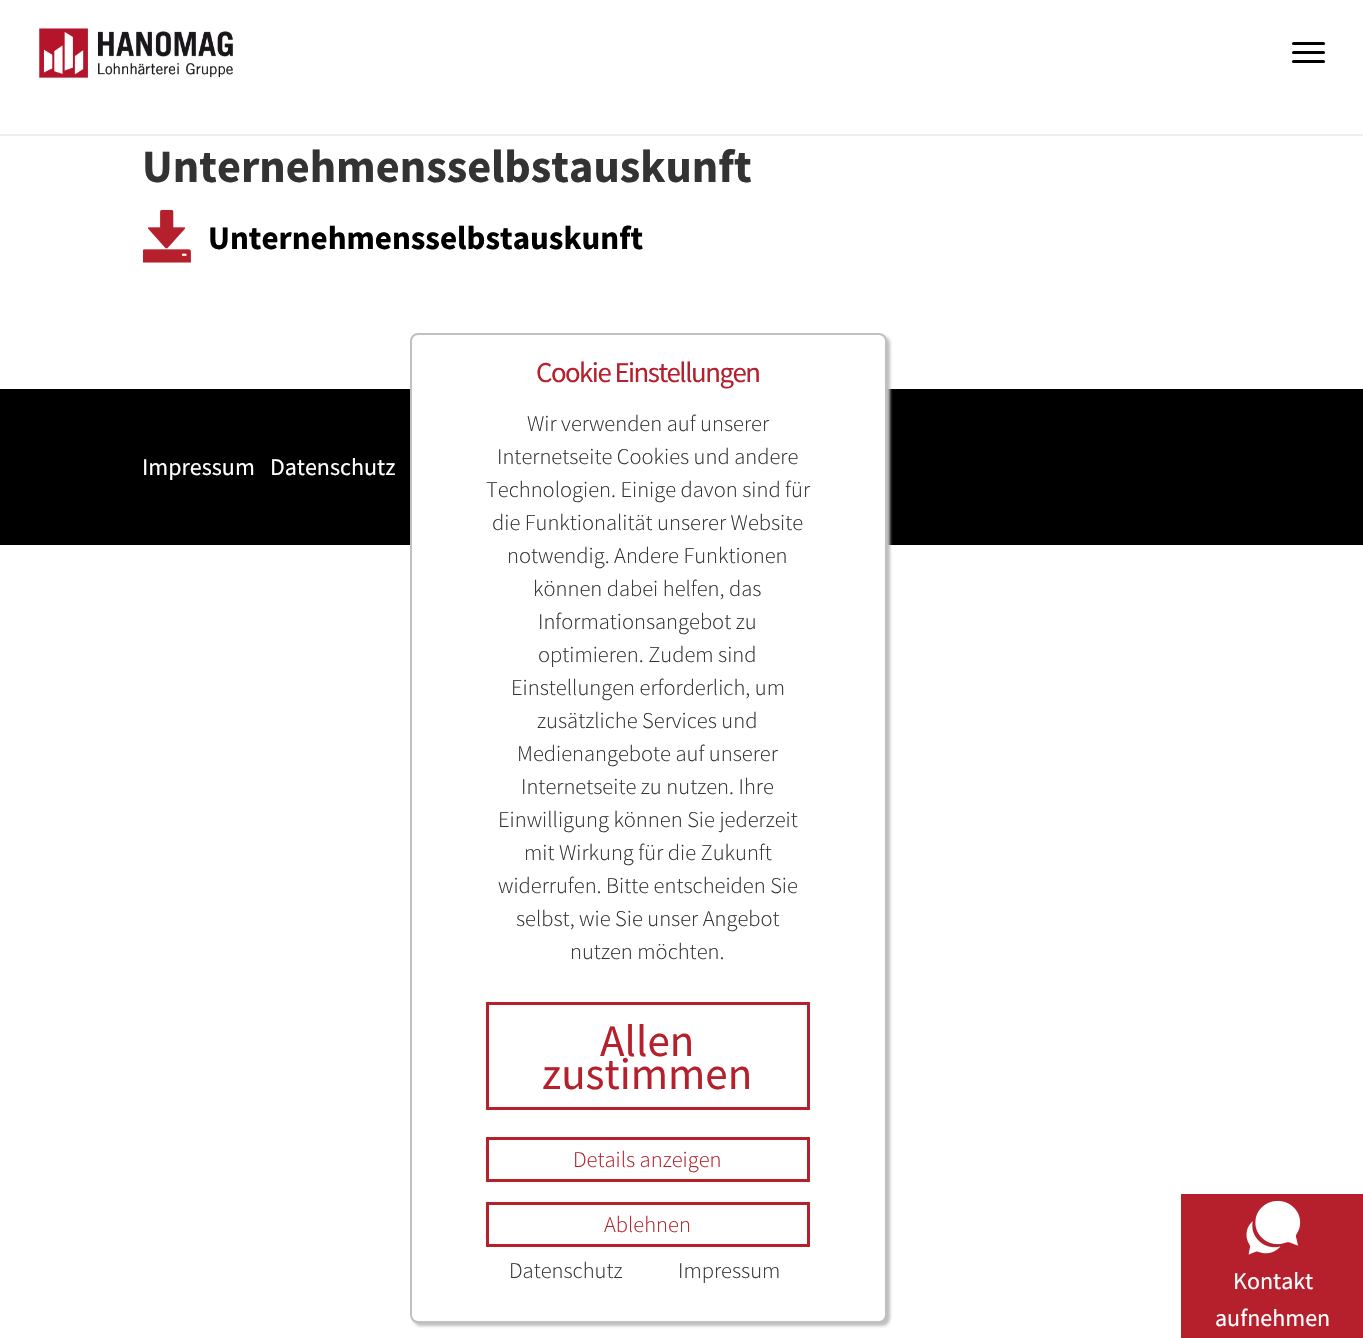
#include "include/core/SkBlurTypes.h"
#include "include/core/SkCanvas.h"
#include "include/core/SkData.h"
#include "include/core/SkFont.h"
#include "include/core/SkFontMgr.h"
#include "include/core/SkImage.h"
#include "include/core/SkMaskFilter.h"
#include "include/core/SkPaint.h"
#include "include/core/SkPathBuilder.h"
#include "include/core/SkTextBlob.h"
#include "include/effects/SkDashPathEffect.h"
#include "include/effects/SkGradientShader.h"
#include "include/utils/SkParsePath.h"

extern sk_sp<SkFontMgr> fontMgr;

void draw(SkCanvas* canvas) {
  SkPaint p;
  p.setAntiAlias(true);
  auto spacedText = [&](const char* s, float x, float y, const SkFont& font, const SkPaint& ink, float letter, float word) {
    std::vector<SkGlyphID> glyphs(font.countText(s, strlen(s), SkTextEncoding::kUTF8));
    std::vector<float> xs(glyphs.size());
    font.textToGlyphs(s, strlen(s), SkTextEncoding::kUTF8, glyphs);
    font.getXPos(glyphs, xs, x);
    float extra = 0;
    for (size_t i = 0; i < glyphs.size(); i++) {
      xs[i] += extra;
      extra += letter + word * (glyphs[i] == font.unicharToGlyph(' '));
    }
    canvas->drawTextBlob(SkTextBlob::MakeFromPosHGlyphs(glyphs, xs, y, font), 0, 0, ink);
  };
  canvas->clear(SK_ColorWHITE);
  p.setColor(SkColorSetRGB(238, 238, 238));
  canvas->drawRect(SkRect::MakeLTRB(0, 134, 1363, 136), p);
  canvas->drawImageRect(SkImages::DeferredFromEncodedData(SkData::MakeFromFileName("images/1.png")), SkRect::MakeLTRB(39, 28, 233, 79), SkSamplingOptions());
  p.setColor(SK_ColorBLACK);
  canvas->drawRoundRect(SkRect::MakeLTRB(1292, 42, 1325, 45), 1.5f, 1.5f, p);
  canvas->drawRoundRect(SkRect::MakeLTRB(1292, 51, 1325, 54), 1.5f, 1.5f, p);
  canvas->drawRoundRect(SkRect::MakeLTRB(1292, 60, 1325, 63), 1.5f, 1.5f, p);
  canvas->drawImageRect(SkImages::DeferredFromEncodedData(SkData::MakeFromFileName("images/2.png")), SkRect::MakeLTRB(143, 210, 191, 263), SkSamplingOptions());
  canvas->drawRect(SkRect::MakeLTRB(0, 389, 1363, 545), p);
  p.setColor(SkColorSetRGB(181, 32, 44));
  canvas->drawRect(SkRect::MakeLTRB(1181, 1194, 1363, 1196), p);
  canvas->drawRect(SkRect::MakeLTRB(1181, 1337, 1363, 1338), p);
  canvas->drawRect(SkRect::MakeLTRB(1181, 1194, 1183, 1338), p);
  canvas->drawRect(SkRect::MakeLTRB(1183, 1196, 1363, 1337), p);
  canvas->drawImageRect(SkImages::DeferredFromEncodedData(SkData::MakeFromFileName("images/3.png")), SkRect::MakeLTRB(1246, 1200, 1301, 1255), SkSamplingOptions());
  p.setColor(SkColorSetRGB(192, 192, 192));
  p.setMaskFilter(SkMaskFilter::MakeBlur(kNormal_SkBlurStyle, 1.5f));
  canvas->drawRoundRect(SkRect::MakeLTRB(413, 336, 890, 1326), 8, 8, p);
  p.setMaskFilter(nullptr);
  p.setColor(SK_ColorWHITE);
  canvas->drawRoundRect(SkRect::MakeLTRB(411, 334, 886, 1322), 7, 7, p);
  p.setStyle(SkPaint::kStroke_Style);
  p.setStrokeWidth(2);
  p.setColor(SkColorSetRGB(192, 192, 192));
  canvas->drawRoundRect(SkRect::MakeLTRB(411, 334, 886, 1322), 7, 7, p);
  p.setStrokeWidth(3);
  p.setColor(SkColorSetRGB(181, 32, 44));
  canvas->drawRect(SkRect::MakeLTRB(487.5f, 1003.5f, 808.5f, 1108.5f), p);
  canvas->drawRect(SkRect::MakeLTRB(487.5f, 1138.5f, 808.5f, 1180.5f), p);
  canvas->drawRect(SkRect::MakeLTRB(487.5f, 1203.5f, 808.5f, 1245.5f), p);
  SkFont font1(fontMgr->matchFamilyStyle("Source Sans Pro", SkFontStyle::Bold()), 46.25f);
  font1.setSubpixel(true);
  p.setStyle(SkPaint::kFill_Style);
  p.setColor(SkColorSetRGB(51, 51, 51));
  canvas->drawString("Unternehmensselbstauskunft", 142, 182, font1, p);
  SkFont font2(fontMgr->matchFamilyStyle("Source Sans Pro", SkFontStyle::Bold()), 33);
  font2.setSubpixel(true);
  p.setColor(SK_ColorBLACK);
  canvas->drawString("Unternehmensselbstauskunft", 208, 249, font2, p);
  SkFont font3(fontMgr->matchFamilyStyle("Source Sans Pro", SkFontStyle::Normal()), 24);
  font3.setSubpixel(true);
  p.setColor(SK_ColorWHITE);
  canvas->drawString("Impressum", 142, 475, font3, p);
  canvas->drawString("Datenschutz", 270, 475, font3, p);
  canvas->drawString("Kontakt", 1233, 1289, font3, p);
  canvas->drawString("aufnehmen", 1215, 1326, font3, p);
  SkFont font4(fontMgr->matchFamilyStyle("Source Sans Pro", SkFontStyle::Normal()), 28.75f);
  font4.setSubpixel(true);
  p.setColor(SkColorSetRGB(181, 32, 44));
  spacedText("Cookie Einstellungen", 536, 382, font4, p, -1.5f, 0);
  SkFont font5(fontMgr->matchFamilyStyle("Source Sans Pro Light", SkFontStyle(300, SkFontStyle::kNormal_Width, SkFontStyle::kUpright_Slant)), 22.5f);
  font5.setSubpixel(true);
  p.setColor(SkColorSetRGB(51, 51, 51));
  canvas->drawString("Wir verwenden auf unserer", 527, 431, font5, p);
  canvas->drawString("Internetseite Cookies und andere", 497, 464, font5, p);
  canvas->drawString("Technologien. Einige davon sind für", 486, 497, font5, p);
  canvas->drawString("die Funktionalität unserer Website", 492, 530, font5, p);
  canvas->drawString("notwendig. Andere Funktionen", 507, 563, font5, p);
  canvas->drawString("können dabei helfen, das", 533, 596, font5, p);
  canvas->drawString("Informationsangebot zu", 538, 629, font5, p);
  canvas->drawString("optimieren. Zudem sind", 538, 662, font5, p);
  canvas->drawString("Einstellungen erforderlich, um", 511, 695, font5, p);
  canvas->drawString("zusätzliche Services und", 537, 728, font5, p);
  canvas->drawString("Medienangebote auf unserer", 517, 761, font5, p);
  canvas->drawString("Internetseite zu nutzen. Ihre", 521, 794, font5, p);
  canvas->drawString("Einwilligung können Sie jederzeit", 498, 827, font5, p);
  canvas->drawString("mit Wirkung für die Zukunft", 524, 860, font5, p);
  canvas->drawString("widerrufen. Bitte entscheiden Sie", 498, 893, font5, p);
  canvas->drawString("selbst, wie Sie unser Angebot", 516, 926, font5, p);
  canvas->drawString("nutzen möchten.", 570, 959, font5, p);
  SkFont font6(fontMgr->matchFamilyStyle("Source Sans Pro", SkFontStyle::Normal()), 45);
  font6.setSubpixel(true);
  p.setColor(SkColorSetRGB(181, 32, 44));
  canvas->drawString("Allen", 600, 1056, font6, p);
  canvas->drawString("zustimmen", 542, 1089, font6, p);
  canvas->drawString("Details anzeigen", 573, 1167, font5, p);
  canvas->drawString("Ablehnen", 604, 1232, font5, p);
  p.setColor(SkColorSetRGB(51, 51, 51));
  canvas->drawString("Datenschutz", 509, 1278, font5, p);
  canvas->drawString("Impressum", 678, 1278, font5, p);
}
